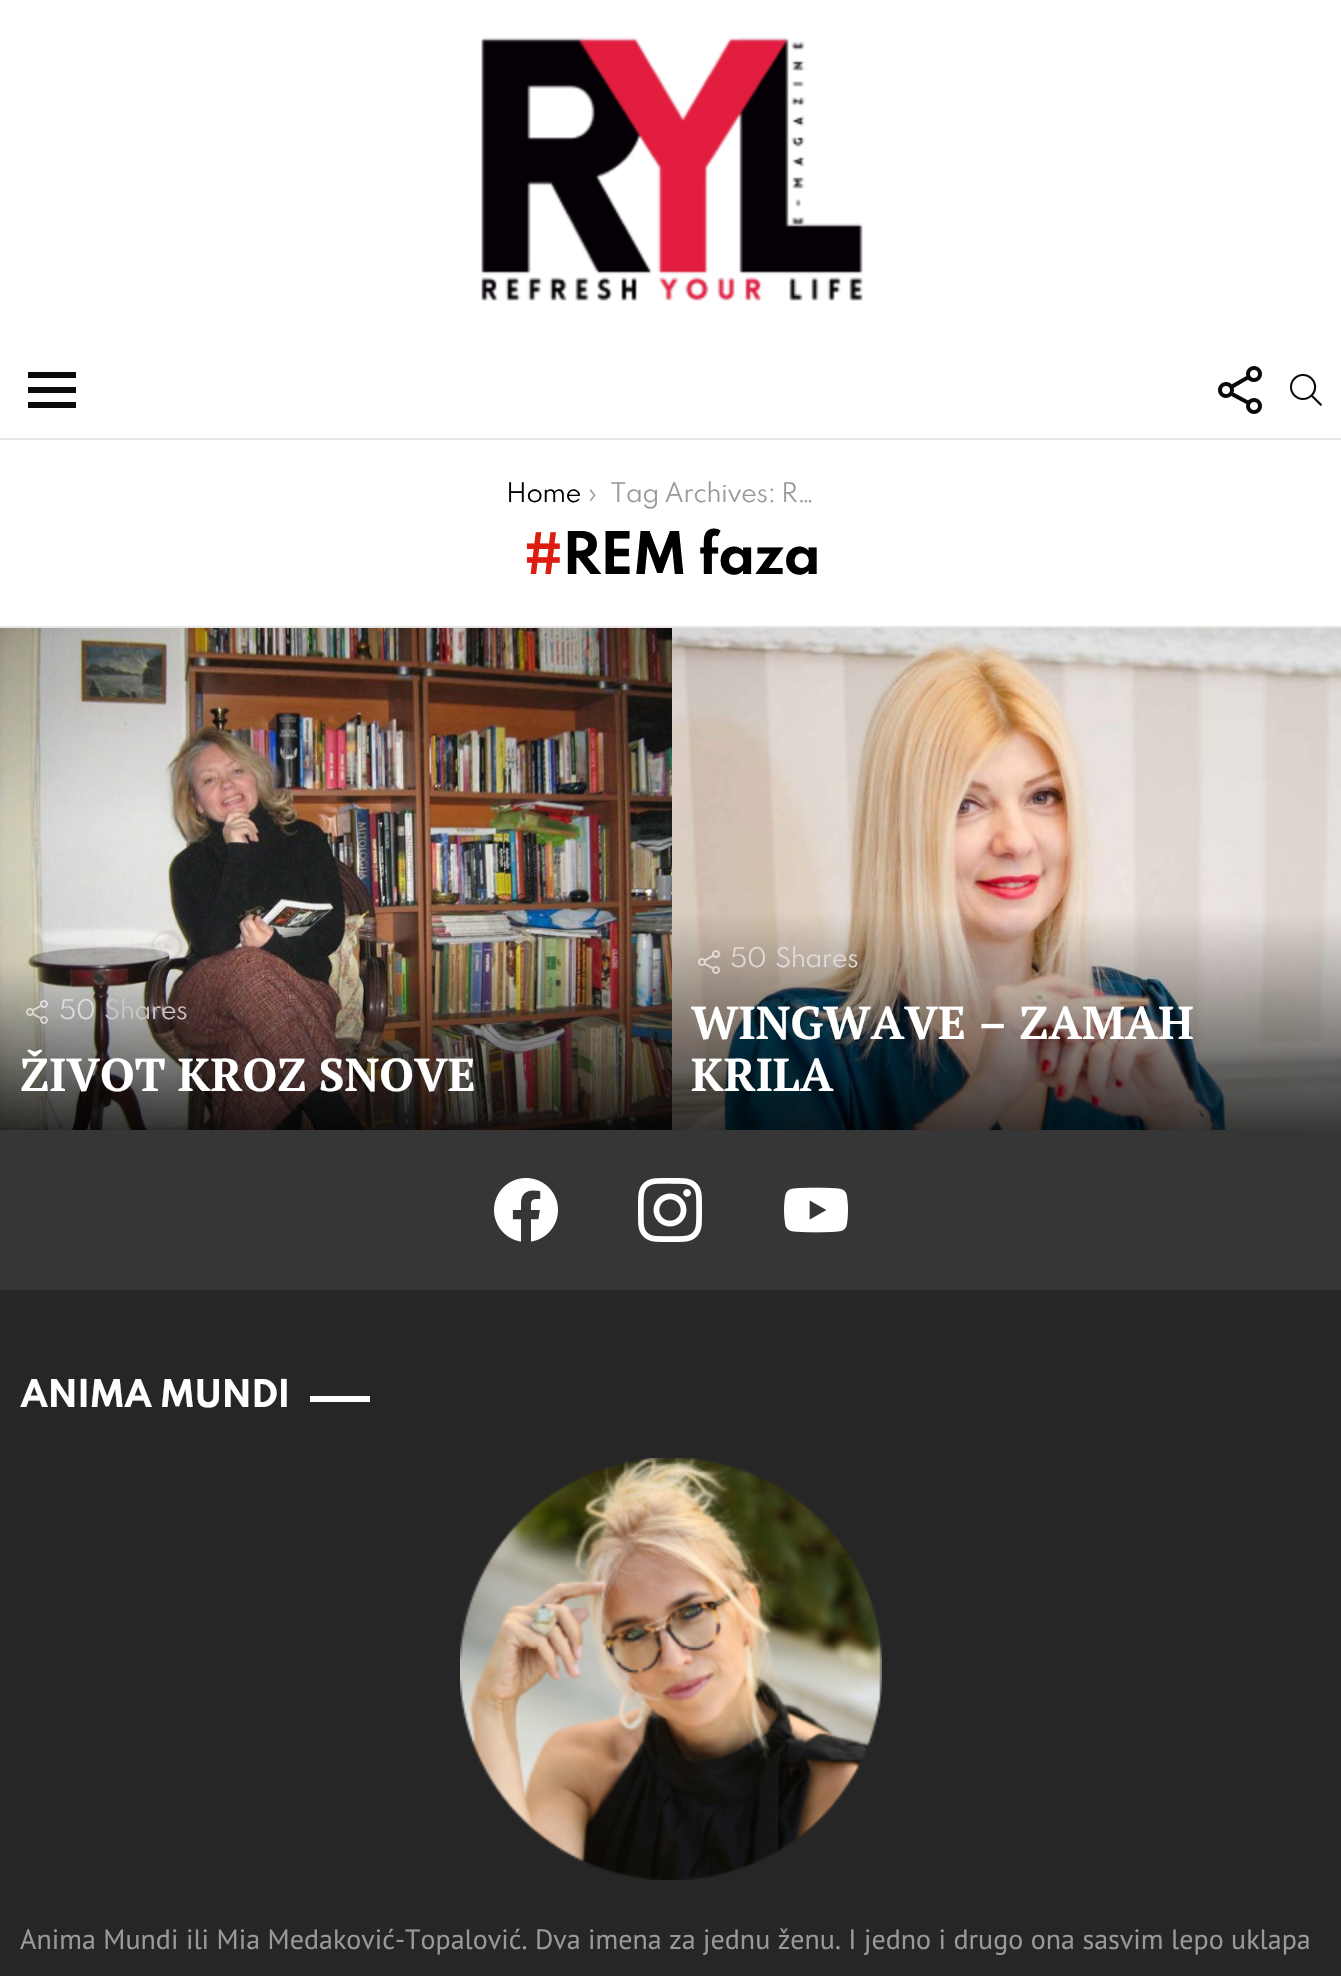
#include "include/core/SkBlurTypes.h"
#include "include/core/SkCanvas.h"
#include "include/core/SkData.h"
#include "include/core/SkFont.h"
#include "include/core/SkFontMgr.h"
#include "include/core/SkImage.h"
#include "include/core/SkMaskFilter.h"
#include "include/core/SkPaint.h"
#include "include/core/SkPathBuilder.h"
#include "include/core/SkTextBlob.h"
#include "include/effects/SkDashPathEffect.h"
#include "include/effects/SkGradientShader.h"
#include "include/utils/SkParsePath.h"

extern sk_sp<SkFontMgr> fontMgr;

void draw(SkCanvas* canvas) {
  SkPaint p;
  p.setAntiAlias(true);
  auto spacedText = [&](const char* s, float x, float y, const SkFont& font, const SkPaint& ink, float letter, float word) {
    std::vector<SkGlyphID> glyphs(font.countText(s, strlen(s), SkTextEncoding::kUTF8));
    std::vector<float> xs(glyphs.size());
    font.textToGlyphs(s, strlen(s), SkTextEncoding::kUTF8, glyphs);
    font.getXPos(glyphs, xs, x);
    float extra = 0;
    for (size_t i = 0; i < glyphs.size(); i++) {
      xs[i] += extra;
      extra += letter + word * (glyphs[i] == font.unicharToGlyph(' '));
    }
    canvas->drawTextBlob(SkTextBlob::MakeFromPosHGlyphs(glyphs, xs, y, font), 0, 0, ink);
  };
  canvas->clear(SK_ColorWHITE);
  canvas->drawImageRect(SkImages::DeferredFromEncodedData(SkData::MakeFromFileName("images/1.png")), SkRect::MakeLTRB(481, 37, 863, 301), SkSamplingOptions());
  p.setColor(SkColorSetRGB(10, 10, 10));
  canvas->drawPath(SkPathBuilder().moveTo(28, 372).lineTo(76, 372).lineTo(76, 378).lineTo(28, 378).close().moveTo(28, 387).lineTo(76, 387).lineTo(76, 393).lineTo(28, 393).close().moveTo(28, 402).lineTo(76, 402).lineTo(76, 408).lineTo(28, 408).close().detach(), p);
  canvas->drawImageRect(SkImages::DeferredFromEncodedData(SkData::MakeFromFileName("images/2.png")), SkRect::MakeLTRB(1218, 366, 1262, 414), SkSamplingOptions());
  canvas->drawImageRect(SkImages::DeferredFromEncodedData(SkData::MakeFromFileName("images/3.png")), SkRect::MakeLTRB(1290, 374, 1322, 406), SkSamplingOptions());
  p.setColor(SkColorSetRGB(230, 230, 230));
  canvas->drawRect(SkRect::MakeLTRB(0, 438, 1341, 440), p);
  canvas->drawRect(SkRect::MakeLTRB(0, 626, 1341, 628), p);
  canvas->drawImageRect(SkImages::DeferredFromEncodedData(SkData::MakeFromFileName("images/4.png")), SkRect::MakeLTRB(0, 628, 672, 1130), SkSamplingOptions());
  canvas->drawImageRect(SkImages::DeferredFromEncodedData(SkData::MakeFromFileName("images/5.png")), SkRect::MakeLTRB(26, 1000, 48, 1024), SkSamplingOptions());
  canvas->drawImageRect(SkImages::DeferredFromEncodedData(SkData::MakeFromFileName("images/6.png")), SkRect::MakeLTRB(672, 628, 1341, 1130), SkSamplingOptions());
  canvas->drawImageRect(SkImages::DeferredFromEncodedData(SkData::MakeFromFileName("images/7.png")), SkRect::MakeLTRB(698, 950, 720, 974), SkSamplingOptions());
  p.setColor(SkColorSetRGB(54, 54, 54));
  canvas->drawRect(SkRect::MakeLTRB(0, 1130, 1341, 1290), p);
  canvas->drawImageRect(SkImages::DeferredFromEncodedData(SkData::MakeFromFileName("images/8.png")), SkRect::MakeLTRB(494, 1178, 558, 1242), SkSamplingOptions());
  canvas->drawImageRect(SkImages::DeferredFromEncodedData(SkData::MakeFromFileName("images/9.png")), SkRect::MakeLTRB(638, 1178, 702, 1242), SkSamplingOptions());
  canvas->drawImageRect(SkImages::DeferredFromEncodedData(SkData::MakeFromFileName("images/10.png")), SkRect::MakeLTRB(784, 1187, 848, 1233), SkSamplingOptions());
  p.setColor(SkColorSetRGB(38, 38, 38));
  canvas->drawRect(SkRect::MakeLTRB(0, 1290, 1341, 1976), p);
  p.setColor(SK_ColorWHITE);
  canvas->drawRect(SkRect::MakeLTRB(310, 1396, 370, 1402), p);
  canvas->drawImageRect(SkImages::DeferredFromEncodedData(SkData::MakeFromFileName("images/11.png")), SkRect::MakeLTRB(460, 1458, 882, 1880), SkSamplingOptions());
  SkFont font1(fontMgr->matchFamilyStyle("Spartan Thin", SkFontStyle::Normal()), 24);
  font1.setSubpixel(true);
  p.setColor(SK_ColorBLACK);
  spacedText("Home", 506, 502, font1, p, -0.75f, 0);
  p.setColor(SkColorSetRGB(153, 153, 153));
  spacedText("›", 588, 502, font1, p, -0.75f, 0);
  spacedText("Tag Archives: R…", 610, 502, font1, p, -0.75f, 0);
  SkFont font2(fontMgr->matchFamilyStyle("Spartan Thin", SkFontStyle::Bold()), 52);
  font2.setSubpixel(true);
  p.setColor(SkColorSetRGB(221, 29, 15));
  spacedText("#", 523, 574, font2, p, -1.5f, 0);
  p.setColor(SK_ColorBLACK);
  spacedText("REM faza", 562, 574, font2, p, -1.5f, 0);
  p.setColor(SkColorSetRGB(220, 220, 219));
  spacedText("50", 59, 1019, font1, p, -0.75f, 0);
  p.setColor(SkColorSetRGB(202, 199, 198));
  spacedText("Shares", 104, 1019, font1, p, -0.75f, 0);
  SkFont font3(fontMgr->matchFamilyStyle("PT Serif", SkFontStyle::Bold()), 46);
  font3.setSubpixel(true);
  p.setColor(SK_ColorWHITE);
  canvas->drawString("ŽIVOT KROZ SNOVE", 20, 1091, font3, p);
  p.setColor(SkColorSetRGB(223, 217, 212));
  spacedText("50", 730, 967, font1, p, -0.75f, 0);
  p.setColor(SkColorSetRGB(220, 220, 219));
  spacedText("Shares", 775, 967, font1, p, -0.75f, 0);
  p.setColor(SK_ColorWHITE);
  canvas->drawString("WINGWAVE – ZAMAH", 691, 1039, font3, p);
  canvas->drawString("KRILA", 691, 1091, font3, p);
  SkFont font4(fontMgr->matchFamilyStyle("Spartan Thin", SkFontStyle::Bold()), 34);
  font4.setSubpixel(true);
  spacedText("ANIMA MUNDI", 20, 1407, font4, p, -1, 0);
  SkFont font5(fontMgr->matchFamilyStyle("PT Sans", SkFontStyle::Normal()), 28);
  font5.setSubpixel(true);
  p.setColor(SkColorSetRGB(153, 153, 153));
  canvas->drawString("Anima Mundi ili Mia Medaković-Topalović. Dva imena za jednu ženu. I jedno i drugo ona sasvim lepo uklapa", 20, 1949, font5, p);
}
